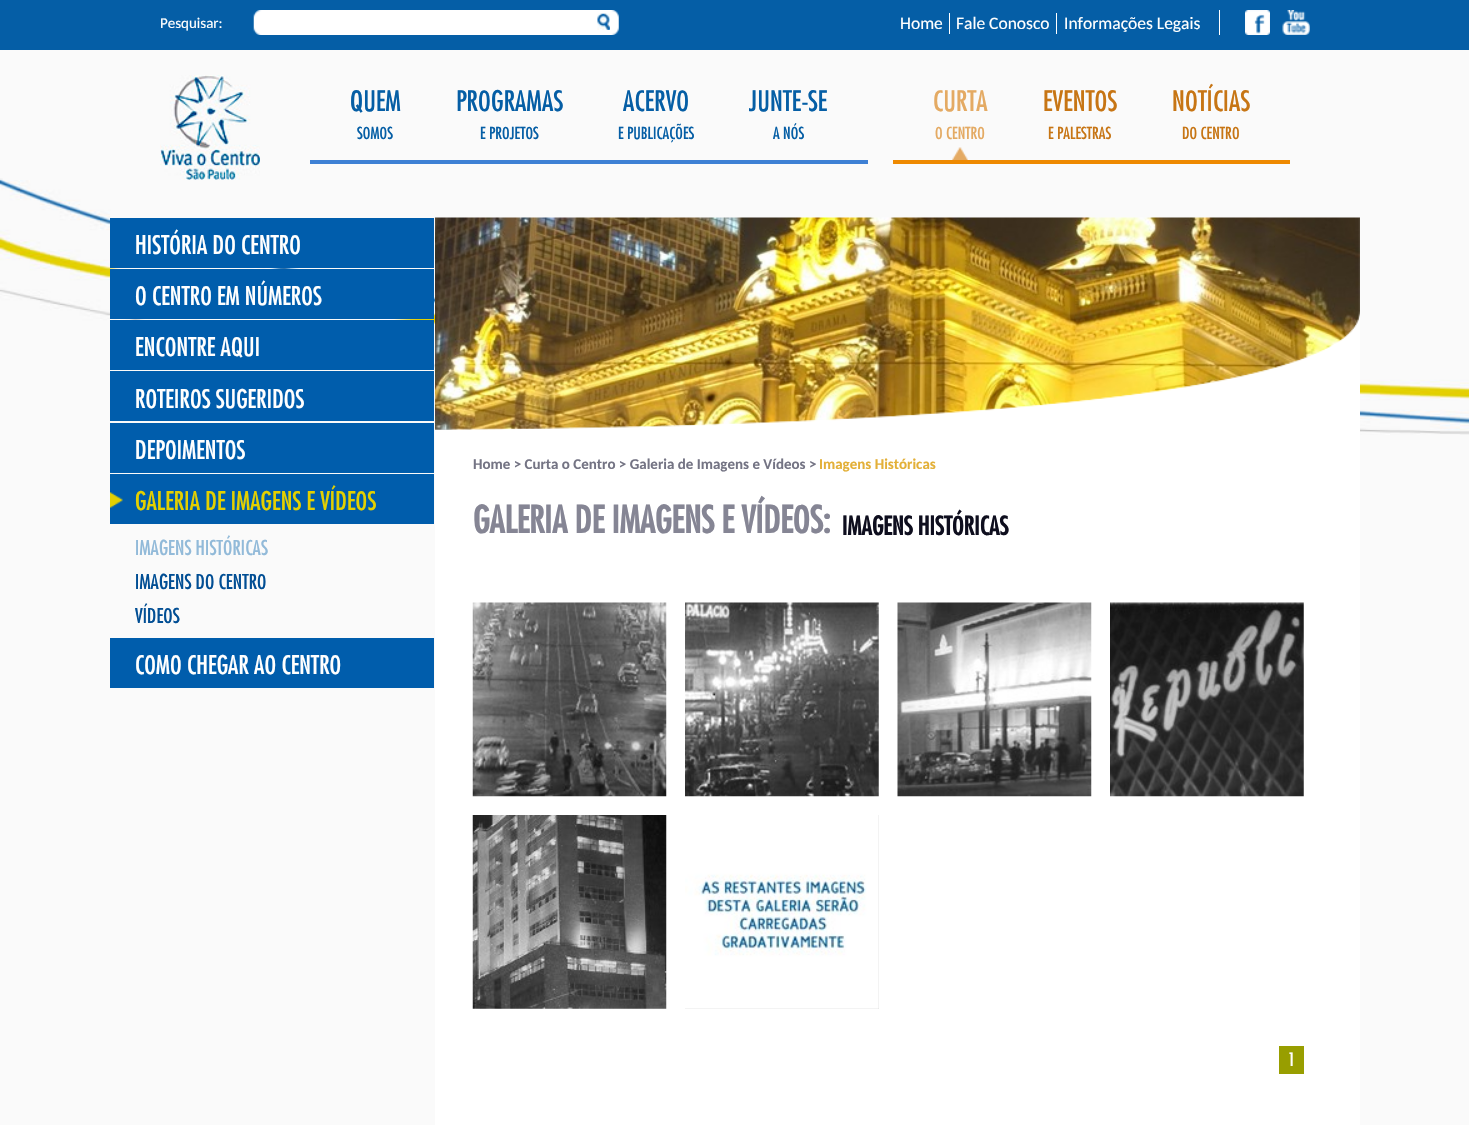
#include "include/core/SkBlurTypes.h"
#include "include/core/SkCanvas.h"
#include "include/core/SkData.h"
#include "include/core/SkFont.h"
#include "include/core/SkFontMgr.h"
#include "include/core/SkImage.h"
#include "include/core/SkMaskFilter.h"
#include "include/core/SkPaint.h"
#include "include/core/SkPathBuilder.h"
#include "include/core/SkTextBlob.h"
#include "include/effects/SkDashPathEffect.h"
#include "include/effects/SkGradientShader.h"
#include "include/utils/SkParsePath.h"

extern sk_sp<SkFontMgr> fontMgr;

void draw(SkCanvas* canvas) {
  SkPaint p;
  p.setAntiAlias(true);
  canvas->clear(SkColorSetRGB(250, 250, 250));
  canvas->drawImageRect(SkImages::DeferredFromEncodedData(SkData::MakeFromFileName("images/1.png")), SkRect::MakeLTRB(0, 180, 1469, 435), SkSamplingOptions());
  canvas->drawImageRect(SkImages::DeferredFromEncodedData(SkData::MakeFromFileName("images/2.png")), SkRect::MakeLTRB(0, 178, 3, 180), SkSamplingOptions());
  p.setColor(SkColorSetRGB(5, 94, 166));
  canvas->drawRect(SkRect::MakeLTRB(0, 0, 1469, 50), p);
  canvas->drawImageRect(SkImages::DeferredFromEncodedData(SkData::MakeFromFileName("images/3.png")), SkRect::MakeLTRB(253, 10, 619, 35), SkSamplingOptions());
  canvas->drawImageRect(SkImages::DeferredFromEncodedData(SkData::MakeFromFileName("images/4.png")), SkRect::MakeLTRB(597, 13, 610, 30), SkSamplingOptions());
  p.setColor(SK_ColorWHITE);
  canvas->drawRect(SkRect::MakeLTRB(260, 33, 261, 34), p);
  canvas->drawRect(SkRect::MakeLTRB(949, 13, 950, 34), p);
  canvas->drawRect(SkRect::MakeLTRB(1056, 13, 1057, 34), p);
  canvas->drawRect(SkRect::MakeLTRB(1219, 10, 1220, 35), p);
  canvas->drawImageRect(SkImages::DeferredFromEncodedData(SkData::MakeFromFileName("images/5.png")), SkRect::MakeLTRB(1245, 10, 1270, 35), SkSamplingOptions());
  canvas->drawImageRect(SkImages::DeferredFromEncodedData(SkData::MakeFromFileName("images/6.png")), SkRect::MakeLTRB(1282, 10, 1310, 35), SkSamplingOptions());
  canvas->drawImageRect(SkImages::DeferredFromEncodedData(SkData::MakeFromFileName("images/7.png")), SkRect::MakeLTRB(160, 75, 260, 180), SkSamplingOptions());
  p.setColor(SkColorSetRGB(62, 128, 212));
  canvas->drawRect(SkRect::MakeLTRB(310, 160, 868, 164), p);
  p.setColor(SkColorSetRGB(238, 137, 0));
  canvas->drawRect(SkRect::MakeLTRB(893, 160, 1290, 164), p);
  canvas->drawImageRect(SkImages::DeferredFromEncodedData(SkData::MakeFromFileName("images/8.png")), SkRect::MakeLTRB(952, 147, 968, 160), SkSamplingOptions());
  p.setColor(SkColorSetRGB(0, 93, 172));
  canvas->drawRect(SkRect::MakeLTRB(110, 218, 434, 268), p);
  canvas->drawRect(SkRect::MakeLTRB(110, 269, 434, 319), p);
  canvas->drawRect(SkRect::MakeLTRB(110, 320, 434, 370), p);
  canvas->drawRect(SkRect::MakeLTRB(110, 371, 434, 421), p);
  canvas->drawRect(SkRect::MakeLTRB(110, 423, 434, 473), p);
  canvas->drawRect(SkRect::MakeLTRB(110, 474, 434, 524), p);
  canvas->drawImageRect(SkImages::DeferredFromEncodedData(SkData::MakeFromFileName("images/9.png")), SkRect::MakeLTRB(110, 492, 123, 508), SkSamplingOptions());
  canvas->drawRect(SkRect::MakeLTRB(110, 638, 434, 688), p);
  p.setColor(SK_ColorWHITE);
  canvas->drawRect(SkRect::MakeLTRB(435, 430, 1360, 1125), p);
  canvas->drawImageRect(SkImages::DeferredFromEncodedData(SkData::MakeFromFileName("images/10.png")), SkRect::MakeLTRB(435, 217, 1360, 430), SkSamplingOptions());
  canvas->drawImageRect(SkImages::DeferredFromEncodedData(SkData::MakeFromFileName("images/11.png")), SkRect::MakeLTRB(435, 217, 1360, 430), SkSamplingOptions());
  canvas->drawImageRect(SkImages::DeferredFromEncodedData(SkData::MakeFromFileName("images/12.png")), SkRect::MakeLTRB(472, 602, 667, 797), SkSamplingOptions());
  canvas->drawImageRect(SkImages::DeferredFromEncodedData(SkData::MakeFromFileName("images/13.png")), SkRect::MakeLTRB(685, 602, 879, 797), SkSamplingOptions());
  canvas->drawImageRect(SkImages::DeferredFromEncodedData(SkData::MakeFromFileName("images/14.png")), SkRect::MakeLTRB(897, 602, 1092, 797), SkSamplingOptions());
  canvas->drawImageRect(SkImages::DeferredFromEncodedData(SkData::MakeFromFileName("images/15.png")), SkRect::MakeLTRB(1110, 602, 1304, 797), SkSamplingOptions());
  canvas->drawImageRect(SkImages::DeferredFromEncodedData(SkData::MakeFromFileName("images/16.png")), SkRect::MakeLTRB(472, 815, 667, 1009), SkSamplingOptions());
  p.setColor(SkColorSetRGB(204, 204, 204));
  canvas->drawRect(SkRect::MakeLTRB(685, 815, 879, 1009), p);
  canvas->drawImageRect(SkImages::DeferredFromEncodedData(SkData::MakeFromFileName("images/17.png")), SkRect::MakeLTRB(685, 815, 879, 1009), SkSamplingOptions());
  p.setColor(SkColorSetRGB(152, 158, 0));
  canvas->drawRect(SkRect::MakeLTRB(1279, 1046, 1304, 1074), p);
  SkFont font1(fontMgr->matchFamilyStyle("Carlito", SkFontStyle::Normal()), 15);
  font1.setSubpixel(true);
  p.setColor(SK_ColorWHITE);
  canvas->drawString("Pesquisar:", 160, 28, font1, p);
  SkFont font2(fontMgr->matchFamilyStyle("Carlito", SkFontStyle::Normal()), 17.5f);
  font2.setSubpixel(true);
  canvas->drawString("Home", 900, 29, font2, p);
  canvas->drawString("Fale Conosco", 956, 29, font2, p);
  canvas->drawString("Informações Legais", 1064, 29, font2, p);
  SkFont font3(fontMgr->matchFamilyStyle("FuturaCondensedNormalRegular", SkFontStyle::Normal()), 27.5f);
  font3.setSubpixel(true);
  p.setColor(SkColorSetRGB(5, 94, 165));
  canvas->drawString("QUEM", 350, 111, font3, p);
  SkFont font4(fontMgr->matchFamilyStyle("FuturaCondensedNormalRegular", SkFontStyle::Normal()), 16.25f);
  font4.setSubpixel(true);
  canvas->drawString("SOMOS", 357, 139, font4, p);
  canvas->drawString("PROGRAMAS", 456, 111, font3, p);
  canvas->drawString("E PROJETOS", 480, 139, font4, p);
  canvas->drawString("ACERVO", 623, 111, font3, p);
  canvas->drawString("E PUBLICAÇÕES", 618, 139, font4, p);
  canvas->drawString("JUNTE-SE", 749, 111, font3, p);
  canvas->drawString("A NÓS", 773, 139, font4, p);
  p.setColor(SkColorSetRGB(228, 170, 99));
  canvas->drawString("CURTA", 933, 111, font3, p);
  canvas->drawString("O CENTRO", 935, 139, font4, p);
  p.setColor(SkColorSetRGB(199, 117, 20));
  canvas->drawString("EVENTOS", 1043, 111, font3, p);
  canvas->drawString("E PALESTRAS", 1048, 139, font4, p);
  canvas->drawString("NOTÍCIAS", 1172, 111, font3, p);
  canvas->drawString("DO CENTRO", 1182, 139, font4, p);
  SkFont font5(fontMgr->matchFamilyStyle("FuturaCondensedNormalRegular", SkFontStyle::Normal()), 25);
  font5.setSubpixel(true);
  p.setColor(SK_ColorWHITE);
  canvas->drawString("HISTÓRIA DO CENTRO", 135, 254, font5, p);
  canvas->drawString("O CENTRO EM NÚMEROS", 135, 305, font5, p);
  canvas->drawString("ENCONTRE AQUI", 135, 356, font5, p);
  canvas->drawString("ROTEIROS SUGERIDOS", 135, 408, font5, p);
  canvas->drawString("DEPOIMENTOS", 135, 459, font5, p);
  p.setColor(SkColorSetRGB(228, 208, 0));
  canvas->drawString("GALERIA DE IMAGENS E VÍDEOS", 135, 510, font5, p);
  SkFont font6(fontMgr->matchFamilyStyle("FuturaCondensedNormalRegular", SkFontStyle::Normal()), 20);
  font6.setSubpixel(true);
  p.setColor(SkColorSetRGB(146, 186, 217));
  canvas->drawString("IMAGENS HISTÓRICAS", 135, 555, font6, p);
  p.setColor(SkColorSetRGB(1, 78, 148));
  canvas->drawString("IMAGENS DO CENTRO", 135, 589, font6, p);
  canvas->drawString("VÍDEOS", 135, 623, font6, p);
  p.setColor(SK_ColorWHITE);
  canvas->drawString("COMO CHEGAR AO CENTRO", 135, 674, font5, p);
  SkFont font7(fontMgr->matchFamilyStyle("Carlito", SkFontStyle::Bold()), 15);
  font7.setSubpixel(true);
  p.setColor(SkColorSetRGB(116, 116, 132));
  canvas->drawString("Home > Curta o Centro > Galeria de Imagens e Vídeos >", 473, 469, font7, p);
  p.setColor(SkColorSetRGB(227, 176, 56));
  canvas->drawString("Imagens Históricas", 819, 469, font7, p);
  SkFont font8(fontMgr->matchFamilyStyle("FuturaCondensedNormalRegular", SkFontStyle::Bold()), 36.25f);
  font8.setSubpixel(true);
  p.setColor(SkColorSetRGB(133, 133, 148));
  canvas->drawString("GALERIA DE IMAGENS E VÍDEOS:", 473, 533, font8, p);
  SkFont font9(fontMgr->matchFamilyStyle("FuturaCondensedNormalRegular", SkFontStyle::Bold()), 25);
  font9.setSubpixel(true);
  p.setColor(SkColorSetRGB(14, 14, 30));
  canvas->drawString("IMAGENS HISTÓRICAS", 842, 535, font9, p);
  SkFont font10(fontMgr->matchFamilyStyle("FuturaCondensedNormalRegular", SkFontStyle::Normal()), 17.5f);
  font10.setSubpixel(true);
  p.setColor(SK_ColorWHITE);
  canvas->drawString("1", 1288, 1066, font10, p);
}
